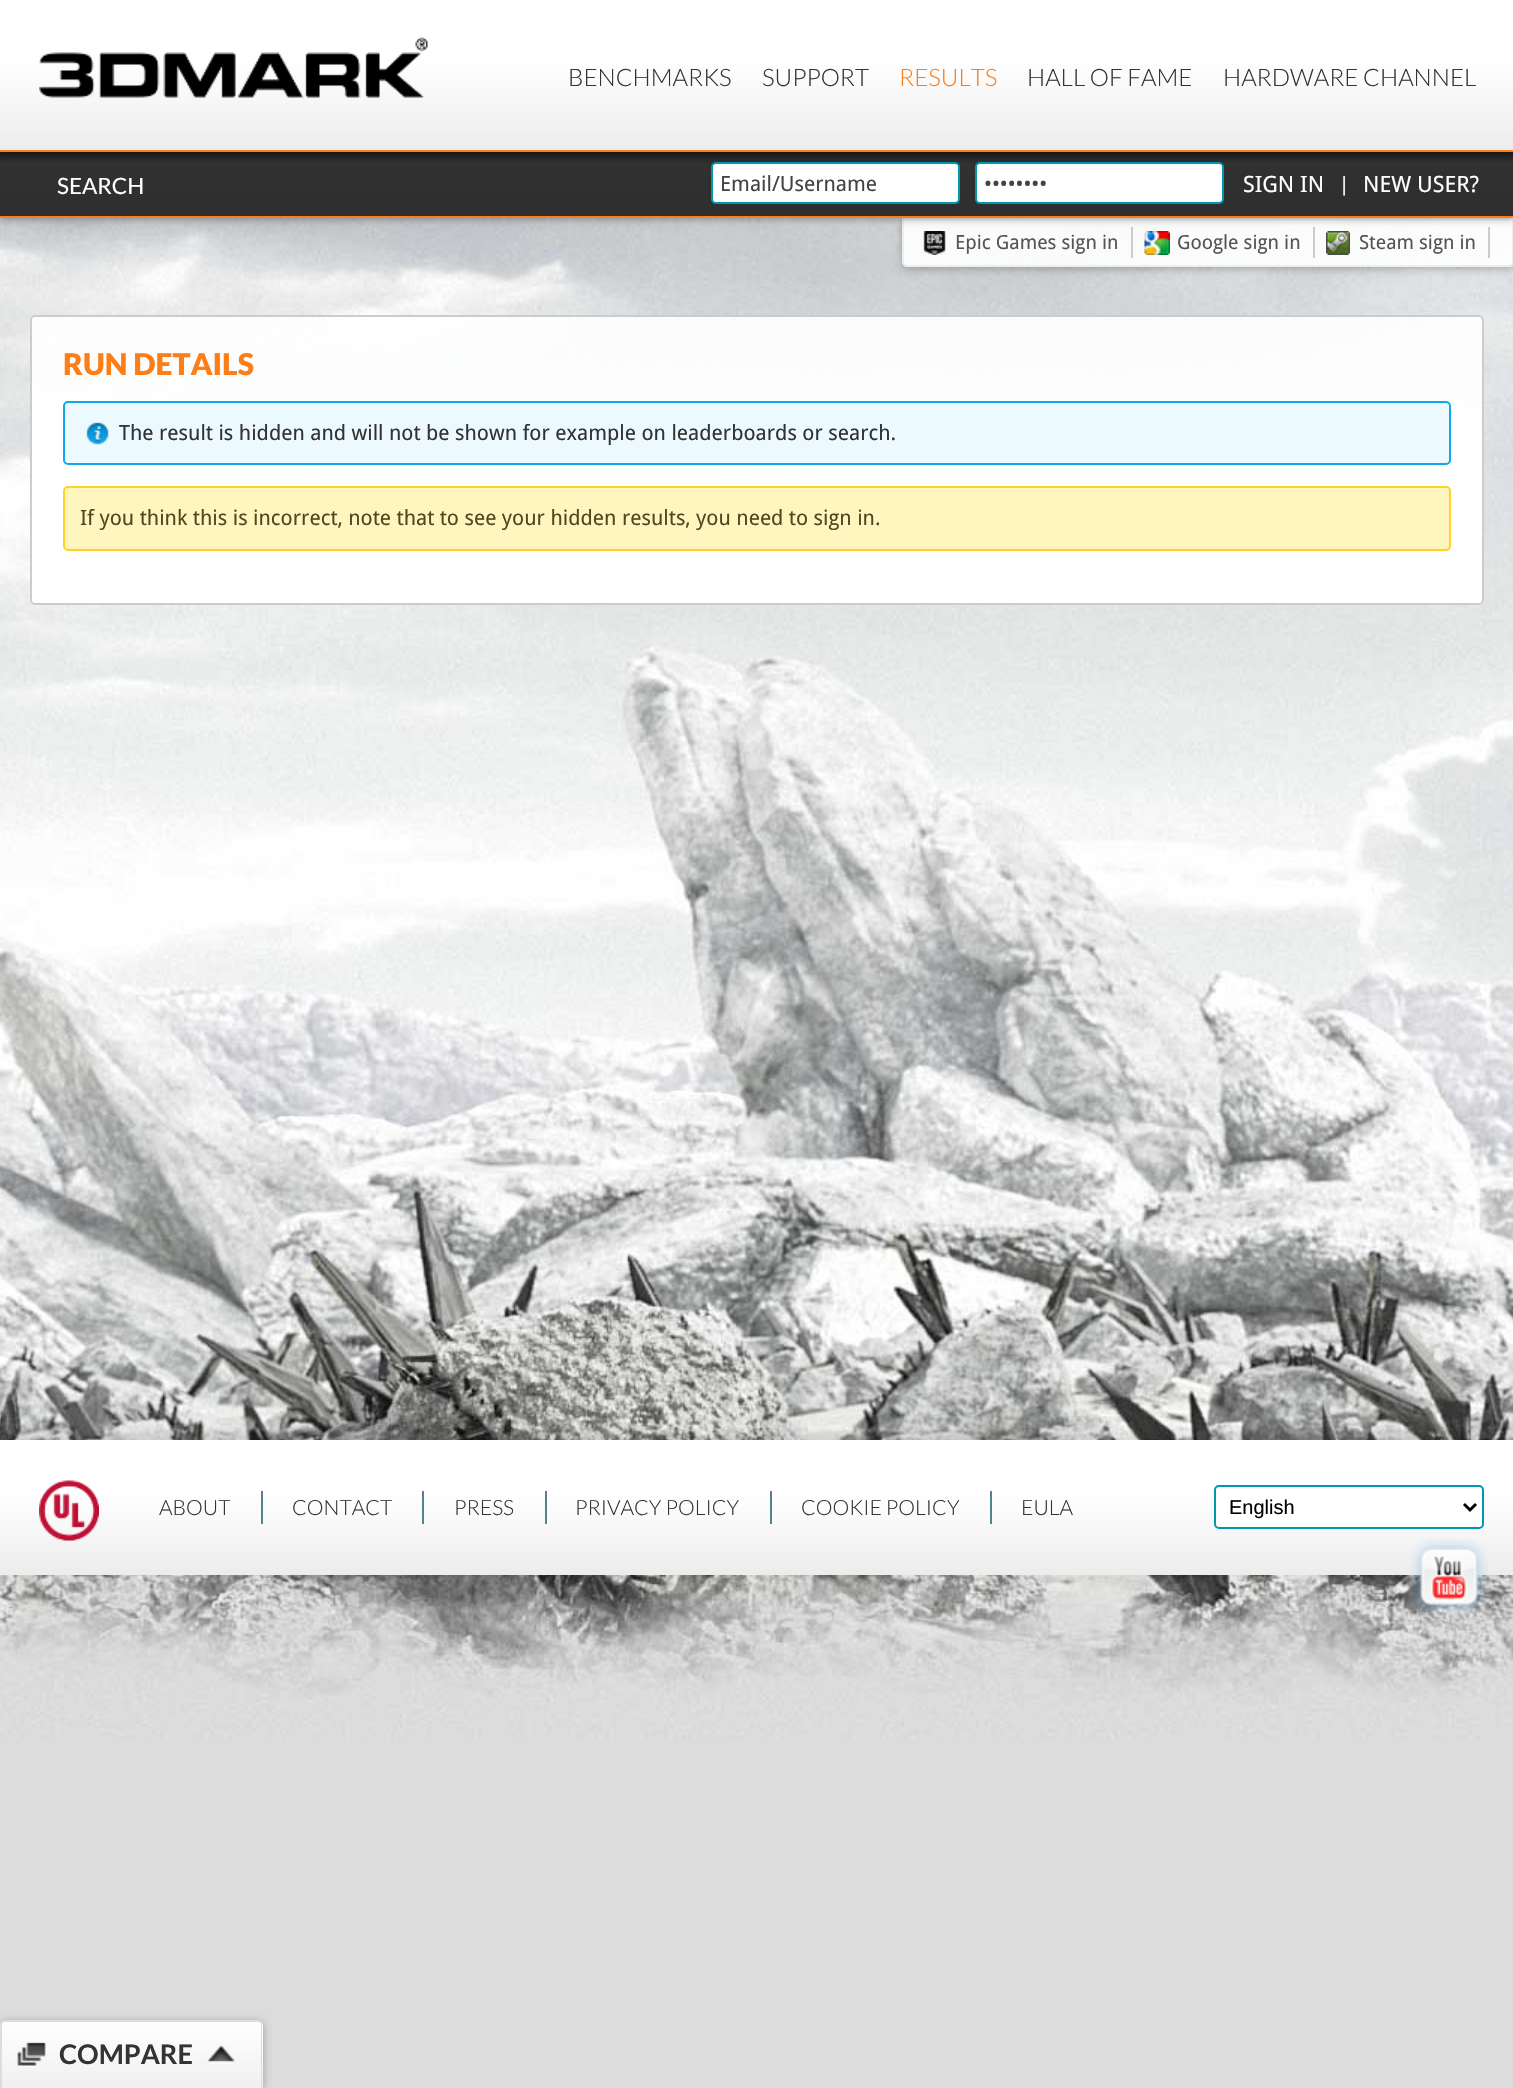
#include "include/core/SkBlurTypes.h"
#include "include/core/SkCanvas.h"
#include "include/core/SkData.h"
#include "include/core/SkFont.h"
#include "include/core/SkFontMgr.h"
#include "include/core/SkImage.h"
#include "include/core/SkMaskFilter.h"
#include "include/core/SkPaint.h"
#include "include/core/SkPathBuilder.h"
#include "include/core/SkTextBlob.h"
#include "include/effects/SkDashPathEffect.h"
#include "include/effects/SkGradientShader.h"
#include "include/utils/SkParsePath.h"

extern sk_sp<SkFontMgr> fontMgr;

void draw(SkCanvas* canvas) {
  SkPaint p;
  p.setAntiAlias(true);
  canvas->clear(SkColorSetRGB(220, 220, 220));
  canvas->drawImageRect(SkImages::DeferredFromEncodedData(SkData::MakeFromFileName("images/1.png")), SkRect::MakeLTRB(0, 218, 1513, 1739), SkSamplingOptions());
  canvas->save();
  canvas->clipPath(SkPathBuilder(SkPathFillType::kEvenOdd).moveTo(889, 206).lineTo(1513, 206).lineTo(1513, 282).lineTo(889, 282).close().moveTo(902, 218).lineTo(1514, 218).lineTo(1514, 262).cubicTo(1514, 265, 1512, 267, 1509, 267).lineTo(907, 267).cubicTo(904, 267, 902, 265, 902, 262).close().detach(), true);
  p.setColor(SkColorSetARGB(64, 0, 0, 0));
  p.setMaskFilter(SkMaskFilter::MakeBlur(kNormal_SkBlurStyle, 4));
  canvas->drawRoundRect(SkRect::MakeLTRB(902, 219, 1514, 269), 5, 5, p);
  p.setMaskFilter(nullptr);
  canvas->restore();
  p.setColor(SkColorSetARGB(230, 255, 255, 255));
  canvas->drawPath(SkPathBuilder().moveTo(903, 219).lineTo(1513, 219).lineTo(1513, 262).cubicTo(1513, 264, 1511, 266, 1509, 266).lineTo(907, 266).cubicTo(905, 266, 903, 264, 903, 262).close().detach(), p);
  p.setStyle(SkPaint::kStroke_Style);
  p.setStrokeWidth(2);
  p.setColor(SkColorSetRGB(238, 238, 238));
  canvas->drawPath(SkPathBuilder().moveTo(903, 219).lineTo(1513, 219).lineTo(1513, 262).cubicTo(1513, 264, 1511, 266, 1509, 266).lineTo(907, 266).cubicTo(905, 266, 903, 264, 903, 262).close().detach(), p);
  canvas->drawImageRect(SkImages::DeferredFromEncodedData(SkData::MakeFromFileName("images/3.png")), SkRect::MakeLTRB(923, 231, 946, 255), SkSamplingOptions());
  p.setStyle(SkPaint::kFill_Style);
  p.setColor(SkColorSetRGB(204, 204, 204));
  canvas->drawRect(SkRect::MakeLTRB(1131, 227, 1133, 258), p);
  canvas->drawImageRect(SkImages::DeferredFromEncodedData(SkData::MakeFromFileName("images/4.png")), SkRect::MakeLTRB(1144, 231, 1170, 255), SkSamplingOptions());
  canvas->drawRect(SkRect::MakeLTRB(1313, 227, 1315, 258), p);
  canvas->drawImageRect(SkImages::DeferredFromEncodedData(SkData::MakeFromFileName("images/5.png")), SkRect::MakeLTRB(1326, 231, 1350, 255), SkSamplingOptions());
  canvas->drawRect(SkRect::MakeLTRB(1488, 227, 1490, 258), p);
  p.setColor(SkColorSetARGB(89, 0, 0, 0));
  p.setMaskFilter(SkMaskFilter::MakeBlur(kNormal_SkBlurStyle, 4));
  canvas->drawRect(SkRect::MakeLTRB(0, 153, 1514, 219), p);
  p.setMaskFilter(nullptr);
  {
    const SkColor colors[] = {SkColorSetRGB(26, 26, 26), SkColorSetRGB(49, 49, 49), SkColorSetRGB(46, 46, 46)};
    const float stops[] = {0, 0.19f, 1};
    const SkPoint ends[] = {{757, 151}, {757, 216}};
    p.setShader(SkGradientShader::MakeLinear(ends, colors, stops, 3, SkTileMode::kClamp));
    p.setAlpha(255);
  }
  canvas->drawRect(SkRect::MakeLTRB(0, 152, 1513, 216), p);
  p.setShader(nullptr);
  p.setColor(SK_ColorWHITE);
  canvas->drawRoundRect(SkRect::MakeLTRB(712, 163, 959, 203), 4, 4, p);
  p.setStyle(SkPaint::kStroke_Style);
  p.setColor(SkColorSetRGB(0, 152, 176));
  canvas->drawRoundRect(SkRect::MakeLTRB(712, 163, 959, 203), 4, 4, p);
  p.setStyle(SkPaint::kFill_Style);
  p.setColor(SK_ColorWHITE);
  canvas->drawRoundRect(SkRect::MakeLTRB(976, 163, 1223, 203), 4, 4, p);
  p.setStyle(SkPaint::kStroke_Style);
  p.setColor(SkColorSetRGB(0, 152, 176));
  canvas->drawRoundRect(SkRect::MakeLTRB(976, 163, 1223, 203), 4, 4, p);
  p.setStyle(SkPaint::kFill_Style);
  p.setColor(SkColorSetARGB(89, 0, 0, 0));
  p.setMaskFilter(SkMaskFilter::MakeBlur(kNormal_SkBlurStyle, 4));
  canvas->drawRect(SkRect::MakeLTRB(0, 2, 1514, 153), p);
  p.setMaskFilter(nullptr);
  {
    const SkColor colors[] = {SK_ColorWHITE, SkColorSetRGB(245, 245, 245), SkColorSetRGB(236, 236, 236)};
    const float stops[] = {0.38f, 0.73f, 1};
    const SkPoint ends[] = {{757, 0}, {757, 150}};
    p.setShader(SkGradientShader::MakeLinear(ends, colors, stops, 3, SkTileMode::kClamp));
    p.setAlpha(255);
  }
  canvas->drawRect(SkRect::MakeLTRB(0, 0, 1513, 150), p);
  p.setShader(nullptr);
  p.setColor(SkColorSetRGB(253, 125, 22));
  canvas->drawRect(SkRect::MakeLTRB(0, 150, 1513, 152), p);
  canvas->drawImageRect(SkImages::DeferredFromEncodedData(SkData::MakeFromFileName("images/2.png")), SkRect::MakeLTRB(39, 37, 428, 98), SkSamplingOptions());
  canvas->drawRect(SkRect::MakeLTRB(0, 216, 1513, 218), p);
  p.setStyle(SkPaint::kStroke_Style);
  p.setColor(SkColorSetRGB(204, 204, 204));
  canvas->drawRoundRect(SkRect::MakeLTRB(31, 316, 1483, 604), 4, 4, p);
  p.setStyle(SkPaint::kFill_Style);
  p.setColor(SkColorSetRGB(236, 249, 255));
  canvas->drawRoundRect(SkRect::MakeLTRB(64, 402, 1450, 464), 4, 4, p);
  p.setStyle(SkPaint::kStroke_Style);
  p.setColor(SkColorSetRGB(16, 167, 239));
  canvas->drawRoundRect(SkRect::MakeLTRB(64, 402, 1450, 464), 4, 4, p);
  canvas->drawImageRect(SkImages::DeferredFromEncodedData(SkData::MakeFromFileName("images/6.png")), SkRect::MakeLTRB(86, 422, 109, 446), SkSamplingOptions());
  p.setStyle(SkPaint::kFill_Style);
  p.setColor(SkColorSetRGB(255, 246, 191));
  canvas->drawRoundRect(SkRect::MakeLTRB(64, 487, 1450, 550), 4, 4, p);
  p.setStyle(SkPaint::kStroke_Style);
  p.setColor(SkColorSetRGB(255, 211, 36));
  canvas->drawRoundRect(SkRect::MakeLTRB(64, 487, 1450, 550), 4, 4, p);
  p.setStyle(SkPaint::kFill_Style);
  p.setColor(SkColorSetARGB(26, 0, 0, 0));
  p.setMaskFilter(SkMaskFilter::MakeBlur(kNormal_SkBlurStyle, 4));
  canvas->drawRect(SkRect::MakeLTRB(0, 1433, 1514, 1568), p);
  p.setMaskFilter(nullptr);
  {
    const SkColor colors[] = {SK_ColorWHITE, SkColorSetRGB(245, 245, 245), SkColorSetRGB(236, 236, 236)};
    const float stops[] = {0.38f, 0.73f, 1};
    const SkPoint ends[] = {{757, 1440}, {757, 1575}};
    p.setShader(SkGradientShader::MakeLinear(ends, colors, stops, 3, SkTileMode::kClamp));
    p.setAlpha(255);
  }
  canvas->drawRect(SkRect::MakeLTRB(0, 1440, 1513, 1575), p);
  canvas->drawImageRect(SkImages::DeferredFromEncodedData(SkData::MakeFromFileName("images/7.png")), SkRect::MakeLTRB(39, 1480, 99, 1541), SkSamplingOptions());
  p.setShader(nullptr);
  p.setColor(SkColorSetRGB(83, 132, 142));
  canvas->drawRect(SkRect::MakeLTRB(261, 1491, 263, 1524), p);
  canvas->drawRect(SkRect::MakeLTRB(422, 1491, 424, 1524), p);
  canvas->drawRect(SkRect::MakeLTRB(545, 1491, 547, 1524), p);
  canvas->drawRect(SkRect::MakeLTRB(770, 1491, 772, 1524), p);
  canvas->drawRect(SkRect::MakeLTRB(990, 1491, 992, 1524), p);
  p.setColor(SK_ColorWHITE);
  canvas->drawRoundRect(SkRect::MakeLTRB(1215, 1486, 1483, 1528), 4, 4, p);
  p.setStyle(SkPaint::kStroke_Style);
  p.setColor(SkColorSetRGB(0, 152, 176));
  canvas->drawRoundRect(SkRect::MakeLTRB(1215, 1486, 1483, 1528), 4, 4, p);
  p.setStrokeWidth(3);
  p.setColor(SK_ColorBLACK);
  canvas->drawPath(SkPathBuilder().moveTo(1464, 1504).lineTo(1470, 1510).lineTo(1476, 1504).detach(), p);
  canvas->drawImageRect(SkImages::DeferredFromEncodedData(SkData::MakeFromFileName("images/8.png")), SkRect::MakeLTRB(1410, 1538, 1488, 1615), SkSamplingOptions());
  p.setStyle(SkPaint::kFill_Style);
  p.setColor(SkColorSetARGB(77, 0, 0, 0));
  p.setMaskFilter(SkMaskFilter::MakeBlur(kNormal_SkBlurStyle, 4));
  canvas->drawRoundRect(SkRect::MakeLTRB(0, 2022, 263, 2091), 5, 5, p);
  p.setMaskFilter(nullptr);
  canvas->save();
  canvas->clipPath(SkPathBuilder().moveTo(5, 2021).lineTo(258, 2021).cubicTo(261, 2021, 263, 2023, 263, 2026).lineTo(263, 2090).lineTo(0, 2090).lineTo(0, 2026).cubicTo(0, 2023, 2, 2021, 5, 2021).close().detach(), true);
  {
    const SkColor colors[] = {SK_ColorWHITE, SkColorSetRGB(239, 239, 239)};
    const float stops[] = {0, 1};
    const SkPoint ends[] = {{131, 2022}, {131, 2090}};
    p.setShader(SkGradientShader::MakeLinear(ends, colors, stops, 2, SkTileMode::kClamp));
    p.setAlpha(255);
  }
  canvas->drawRect(SkRect::MakeLTRB(0, 2022, 263, 2088), p);
  canvas->restore();
  p.setShader(nullptr);
  p.setColor(SkColorSetRGB(221, 221, 221));
  canvas->drawPath(SkPathBuilder(SkPathFillType::kEvenOdd).moveTo(4, 2020).lineTo(258, 2020).cubicTo(260, 2020, 262, 2023, 262, 2025).lineTo(262, 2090).lineTo(0, 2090).lineTo(0, 2025).cubicTo(0, 2023, 2, 2020, 4, 2020).close().moveTo(4, 2022).lineTo(258, 2022).cubicTo(260, 2022, 261, 2023, 261, 2025).lineTo(261, 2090).lineTo(2, 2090).lineTo(2, 2025).cubicTo(2, 2023, 3, 2022, 4, 2022).close().detach(), p);
  canvas->drawImageRect(SkImages::DeferredFromEncodedData(SkData::MakeFromFileName("images/9.png")), SkRect::MakeLTRB(17, 2042, 46, 2067), SkSamplingOptions());
  canvas->drawImageRect(SkImages::DeferredFromEncodedData(SkData::MakeFromFileName("images/10.png")), SkRect::MakeLTRB(207, 2045, 235, 2064), SkSamplingOptions());
  SkFont font1(fontMgr->matchFamilyStyle("Lato", SkFontStyle(300, SkFontStyle::kNormal_Width, SkFontStyle::kUpright_Slant)), 24);
  font1.setSubpixel(true);
  p.setColor(SkColorSetRGB(51, 51, 51));
  canvas->drawString("BENCHMARKS", 568, 86, font1, p);
  canvas->drawString("SUPPORT", 762, 86, font1, p);
  p.setColor(SkColorSetRGB(253, 125, 22));
  canvas->drawString("RESULTS", 899, 86, font1, p);
  p.setColor(SkColorSetRGB(51, 51, 51));
  canvas->drawString("HALL OF FAME", 1027, 86, font1, p);
  canvas->drawString("HARDWARE CHANNEL", 1223, 86, font1, p);
  SkFont font2(fontMgr->matchFamilyStyle("Lato", SkFontStyle::Normal()), 22.5f);
  font2.setSubpixel(true);
  p.setColor(SK_ColorWHITE);
  canvas->drawString("SEARCH", 57, 194, font2, p);
  SkFont font3(fontMgr->matchFamilyStyle("Droid Sans", SkFontStyle::Normal()), 21);
  font3.setSubpixel(true);
  p.setColor(SkColorSetRGB(68, 68, 68));
  canvas->drawString("Email/Username", 720, 191, font3, p);
  canvas->drawString("••••••••", 984, 191, font3, p);
  SkFont font4(fontMgr->matchFamilyStyle("Droid Sans", SkFontStyle::Normal()), 22.5f);
  font4.setSubpixel(true);
  p.setColor(SK_ColorWHITE);
  canvas->drawString("SIGN IN", 1243, 192, font4, p);
  SkFont font5(fontMgr->matchFamilyStyle("Lato", SkFontStyle::Normal()), 21);
  font5.setSubpixel(true);
  canvas->drawString("|", 1341, 192, font5, p);
  canvas->drawString("NEW USER?", 1363, 192, font4, p);
  SkFont font6(fontMgr->matchFamilyStyle("Droid Sans", SkFontStyle::Normal()), 19.5f);
  font6.setSubpixel(true);
  p.setColor(SkColorSetRGB(85, 85, 85));
  canvas->drawString("Epic Games sign in", 955, 249, font6, p);
  canvas->drawString("Google sign in", 1177, 249, font6, p);
  canvas->drawString("Steam sign in", 1359, 249, font6, p);
  SkFont font7(fontMgr->matchFamilyStyle("Lato", SkFontStyle(900, SkFontStyle::kNormal_Width, SkFontStyle::kUpright_Slant)), 30);
  font7.setSubpixel(true);
  p.setColor(SkColorSetRGB(253, 125, 22));
  canvas->drawString("RUN DETAILS", 63, 375, font7, p);
  p.setColor(SkColorSetRGB(51, 51, 51));
  canvas->drawString("The result is hidden and will not be shown for example on leaderboards or search.", 119, 440, font3, p);
  p.setColor(SkColorSetRGB(81, 71, 33));
  canvas->drawString("If you think this is incorrect, note that to see your hidden results, you need to sign in.", 80, 525, font3, p);
  SkFont font8(fontMgr->matchFamilyStyle("Lato", SkFontStyle(300, SkFontStyle::kNormal_Width, SkFontStyle::kUpright_Slant)), 21);
  font8.setSubpixel(true);
  p.setColor(SkColorSetRGB(51, 51, 51));
  canvas->drawString("ABOUT", 159, 1515, font8, p);
  canvas->drawString("CONTACT", 292, 1515, font8, p);
  canvas->drawString("PRESS", 454, 1515, font8, p);
  canvas->drawString("PRIVACY POLICY", 575, 1515, font8, p);
  canvas->drawString("COOKIE POLICY", 801, 1515, font8, p);
  canvas->drawString("EULA", 1021, 1515, font8, p);
  SkFont font9(fontMgr->matchFamilyStyle("Liberation Sans", SkFontStyle::Normal()), 20);
  font9.setSubpixel(true);
  p.setColor(SK_ColorBLACK);
  canvas->drawString("English", 1229, 1514, font9, p);
  SkFont font10(fontMgr->matchFamilyStyle("Lato", SkFontStyle::Bold()), 27);
  font10.setSubpixel(true);
  p.setColor(SkColorSetRGB(51, 51, 51));
  canvas->drawString("COMPARE", 59, 2064, font10, p);
}
